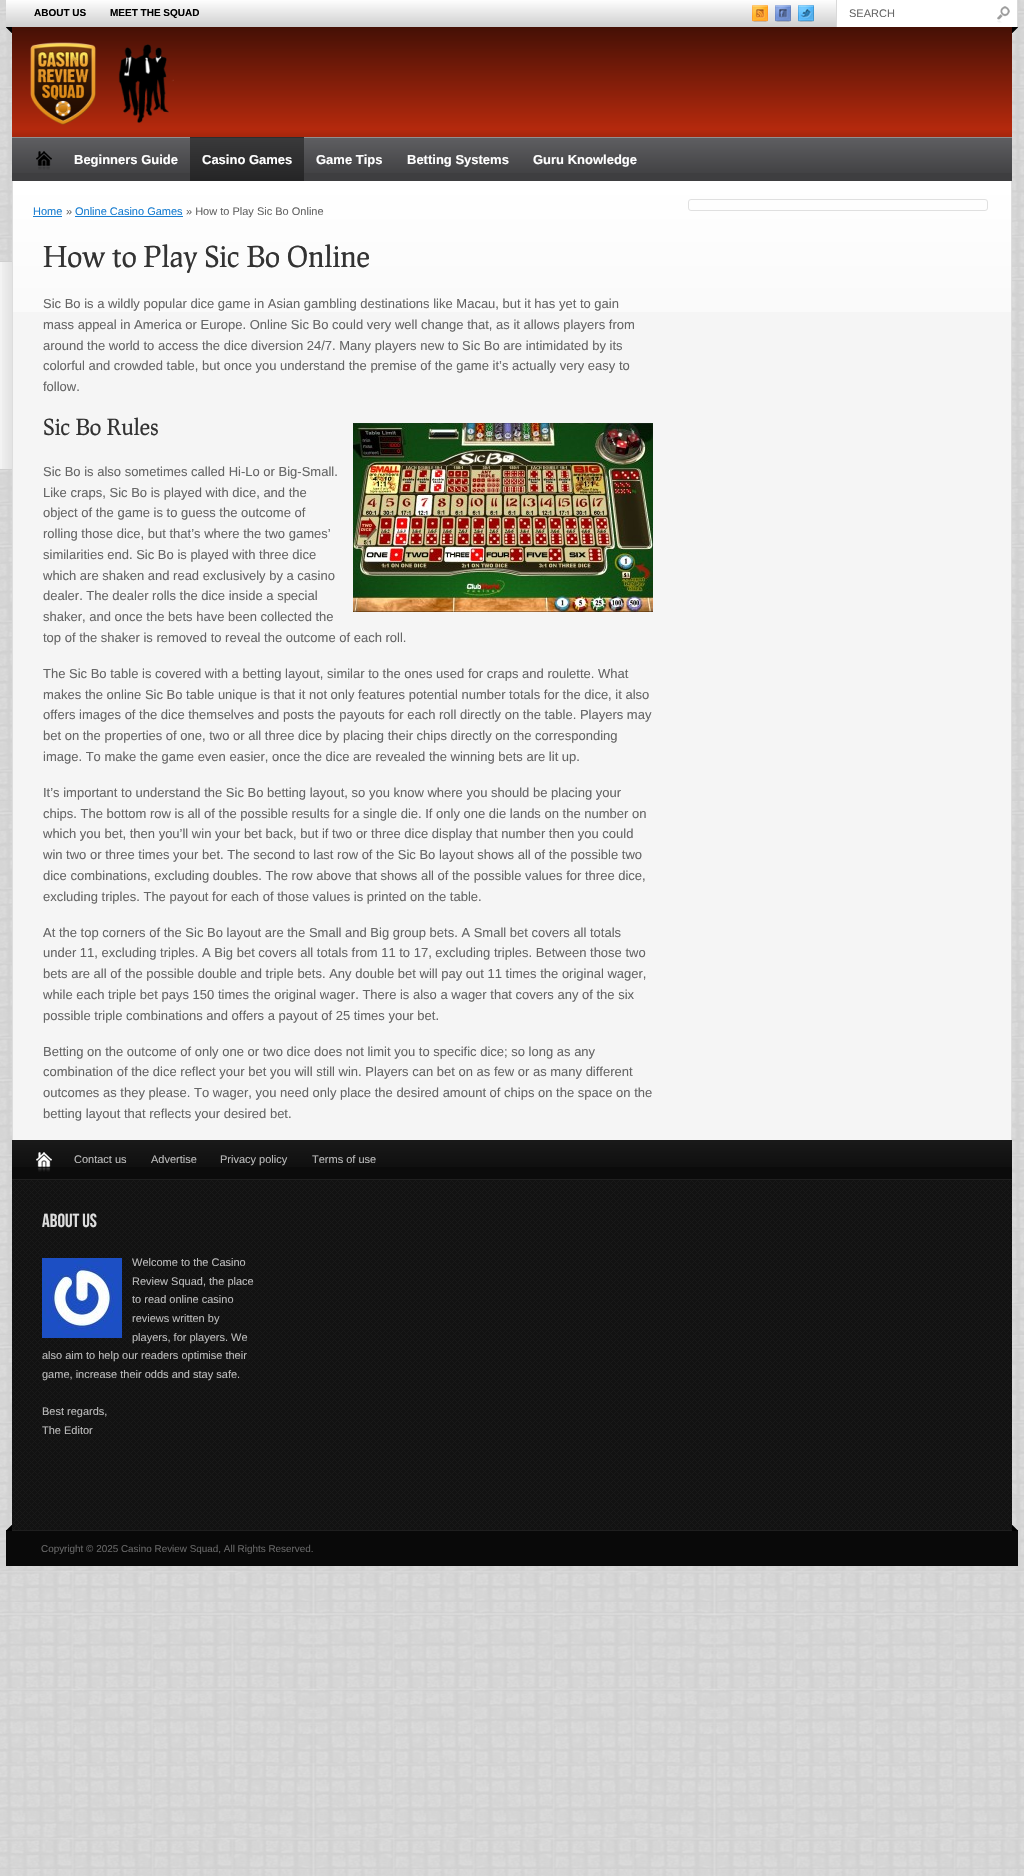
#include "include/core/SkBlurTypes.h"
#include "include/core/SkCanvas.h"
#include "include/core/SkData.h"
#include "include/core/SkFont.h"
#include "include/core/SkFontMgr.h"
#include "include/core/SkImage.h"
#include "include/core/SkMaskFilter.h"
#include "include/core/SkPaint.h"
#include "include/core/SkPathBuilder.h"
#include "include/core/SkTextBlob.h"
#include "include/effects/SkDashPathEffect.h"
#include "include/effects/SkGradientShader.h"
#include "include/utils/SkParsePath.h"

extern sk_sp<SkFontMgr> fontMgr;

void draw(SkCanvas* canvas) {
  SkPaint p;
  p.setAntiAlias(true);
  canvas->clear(SkColorSetRGB(225, 225, 225));
  canvas->drawImageRect(SkImages::DeferredFromEncodedData(SkData::MakeFromFileName("images/1.png")), SkRect::MakeLTRB(0, 0, 1024, 1876), SkSamplingOptions());
  canvas->drawImageRect(SkImages::DeferredFromEncodedData(SkData::MakeFromFileName("images/2.png")), SkRect::MakeLTRB(6, 0, 836, 27), SkSamplingOptions());
  canvas->drawImageRect(SkImages::DeferredFromEncodedData(SkData::MakeFromFileName("images/3.png")), SkRect::MakeLTRB(752, 5, 768, 22), SkSamplingOptions());
  canvas->drawImageRect(SkImages::DeferredFromEncodedData(SkData::MakeFromFileName("images/4.png")), SkRect::MakeLTRB(775, 5, 791, 22), SkSamplingOptions());
  canvas->drawImageRect(SkImages::DeferredFromEncodedData(SkData::MakeFromFileName("images/5.png")), SkRect::MakeLTRB(798, 5, 814, 22), SkSamplingOptions());
  p.setColor(SK_ColorWHITE);
  canvas->drawRect(SkRect::MakeLTRB(837, 0, 1017, 27), p);
  p.setColor(SkColorSetRGB(217, 217, 217));
  canvas->drawRect(SkRect::MakeLTRB(1017, 0, 1018, 27), p);
  canvas->drawRect(SkRect::MakeLTRB(836, 0, 837, 27), p);
  canvas->drawImageRect(SkImages::DeferredFromEncodedData(SkData::MakeFromFileName("images/6.png")), SkRect::MakeLTRB(997, 6, 1010, 23), SkSamplingOptions());
  canvas->drawImageRect(SkImages::DeferredFromEncodedData(SkData::MakeFromFileName("images/7.png")), SkRect::MakeLTRB(6, 27, 12, 33), SkSamplingOptions());
  canvas->drawImageRect(SkImages::DeferredFromEncodedData(SkData::MakeFromFileName("images/8.png")), SkRect::MakeLTRB(1012, 27, 1018, 33), SkSamplingOptions());
  p.setColor(SkColorSetRGB(230, 52, 16));
  canvas->drawRect(SkRect::MakeLTRB(12, 27, 1012, 137), p);
  canvas->drawImageRect(SkImages::DeferredFromEncodedData(SkData::MakeFromFileName("images/9.png")), SkRect::MakeLTRB(12, 27, 1012, 137), SkSamplingOptions());
  canvas->drawImageRect(SkImages::DeferredFromEncodedData(SkData::MakeFromFileName("images/10.png")), SkRect::MakeLTRB(30, 42, 174, 125), SkSamplingOptions());
  canvas->drawImageRect(SkImages::DeferredFromEncodedData(SkData::MakeFromFileName("images/11.png")), SkRect::MakeLTRB(12, 130, 1012, 137), SkSamplingOptions());
  p.setColor(SkColorSetRGB(62, 62, 64));
  canvas->drawRect(SkRect::MakeLTRB(12, 173, 1012, 181), p);
  canvas->drawImageRect(SkImages::DeferredFromEncodedData(SkData::MakeFromFileName("images/12.png")), SkRect::MakeLTRB(12, 138, 1012, 173), SkSamplingOptions());
  p.setColor(SkColorSetRGB(144, 144, 144));
  canvas->drawRect(SkRect::MakeLTRB(12, 137, 1012, 138), p);
  canvas->drawImageRect(SkImages::DeferredFromEncodedData(SkData::MakeFromFileName("images/13.png")), SkRect::MakeLTRB(36, 151, 52, 170), SkSamplingOptions());
  canvas->drawImageRect(SkImages::DeferredFromEncodedData(SkData::MakeFromFileName("images/14.png")), SkRect::MakeLTRB(190, 138, 304, 181), SkSamplingOptions());
  p.setColor(SkColorSetRGB(45, 45, 45));
  canvas->drawRect(SkRect::MakeLTRB(190, 137, 304, 138), p);
  p.setColor(SkColorSetRGB(245, 245, 245));
  canvas->drawRect(SkRect::MakeLTRB(13, 312, 1011, 1140), p);
  canvas->drawImageRect(SkImages::DeferredFromEncodedData(SkData::MakeFromFileName("images/15.png")), SkRect::MakeLTRB(13, 181, 1011, 312), SkSamplingOptions());
  p.setColor(SkColorSetRGB(221, 221, 221));
  canvas->drawRect(SkRect::MakeLTRB(1011, 181, 1012, 1140), p);
  canvas->drawRect(SkRect::MakeLTRB(12, 181, 13, 1140), p);
  p.setStyle(SkPaint::kStroke_Style);
  p.setStrokeWidth(1);
  p.setColor(SkColorSetRGB(224, 224, 224));
  canvas->drawRoundRect(SkRect::MakeLTRB(688.5f, 199.5f, 987.5f, 210.5f), 2.5f, 2.5f, p);
  p.setStyle(SkPaint::kFill_Style);
  p.setColor(SkColorSetRGB(243, 243, 243));
  canvas->drawRect(SkRect::MakeLTRB(0, 262, 2, 469), p);
  canvas->drawImageRect(SkImages::DeferredFromEncodedData(SkData::MakeFromFileName("images/16.png")), SkRect::MakeLTRB(2, 262, 12, 469), SkSamplingOptions());
  p.setColor(SkColorSetRGB(207, 207, 207));
  canvas->drawPath(SkPathBuilder(SkPathFillType::kEvenOdd).moveTo(-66, 261).lineTo(12, 261).lineTo(12, 470).lineTo(-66, 470).cubicTo(-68, 470, -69, 469, -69, 467).lineTo(-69, 264).cubicTo(-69, 262, -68, 261, -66, 261).close().moveTo(-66, 262).lineTo(12, 262).lineTo(12, 469).lineTo(-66, 469).cubicTo(-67, 469, -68, 468, -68, 467).lineTo(-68, 264).cubicTo(-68, 263, -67, 262, -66, 262).close().detach(), p);
  p.setColor(SkColorSetRGB(26, 126, 209));
  canvas->drawRect(SkRect::MakeLTRB(33, 216, 62, 217), p);
  canvas->drawRect(SkRect::MakeLTRB(75, 216, 183, 217), p);
  canvas->drawImageRect(SkImages::DeferredFromEncodedData(SkData::MakeFromFileName("images/17.png")), SkRect::MakeLTRB(353, 423, 653, 612), SkSamplingOptions());
  canvas->drawImageRect(SkImages::DeferredFromEncodedData(SkData::MakeFromFileName("images/18.png")), SkRect::MakeLTRB(12, 1180, 1012, 1530), SkSamplingOptions());
  p.setColor(SkColorSetRGB(11, 11, 11));
  canvas->drawRect(SkRect::MakeLTRB(12, 1167, 1012, 1179), p);
  canvas->drawImageRect(SkImages::DeferredFromEncodedData(SkData::MakeFromFileName("images/19.png")), SkRect::MakeLTRB(12, 1140, 1012, 1167), SkSamplingOptions());
  p.setColor(SkColorSetRGB(31, 31, 31));
  canvas->drawRect(SkRect::MakeLTRB(12, 1179, 1012, 1180), p);
  canvas->drawImageRect(SkImages::DeferredFromEncodedData(SkData::MakeFromFileName("images/20.png")), SkRect::MakeLTRB(36, 1152, 52, 1172), SkSamplingOptions());
  canvas->drawImageRect(SkImages::DeferredFromEncodedData(SkData::MakeFromFileName("images/21.png")), SkRect::MakeLTRB(42, 1258, 122, 1338), SkSamplingOptions());
  p.setColor(SkColorSetRGB(9, 9, 9));
  canvas->drawRect(SkRect::MakeLTRB(6, 1531, 1018, 1566), p);
  p.setColor(SkColorSetRGB(31, 31, 31));
  canvas->drawRect(SkRect::MakeLTRB(6, 1530, 1018, 1531), p);
  canvas->drawImageRect(SkImages::DeferredFromEncodedData(SkData::MakeFromFileName("images/22.png")), SkRect::MakeLTRB(6, 1525, 12, 1531), SkSamplingOptions());
  canvas->drawImageRect(SkImages::DeferredFromEncodedData(SkData::MakeFromFileName("images/23.png")), SkRect::MakeLTRB(1012, 1525, 1018, 1531), SkSamplingOptions());
  SkFont font1(fontMgr->matchFamilyStyle("Liberation Sans", SkFontStyle::Bold()), 10);
  font1.setSubpixel(true);
  p.setColor(SK_ColorBLACK);
  canvas->drawString("ABOUT US", 34, 16, font1, p);
  canvas->drawString("MEET THE SQUAD", 110, 16, font1, p);
  SkFont font2(fontMgr->matchFamilyStyle("Liberation Sans", SkFontStyle::Normal()), 11);
  font2.setSubpixel(true);
  p.setColor(SkColorSetRGB(102, 102, 102));
  canvas->drawString("SEARCH", 849, 17, font2, p);
  SkFont font3(fontMgr->matchFamilyStyle("Liberation Sans", SkFontStyle::Bold()), 13);
  font3.setSubpixel(true);
  p.setColor(SK_ColorWHITE);
  canvas->drawString("Beginners Guide", 74, 164, font3, p);
  canvas->drawString("Casino Games", 202, 164, font3, p);
  canvas->drawString("Game Tips", 316, 164, font3, p);
  canvas->drawString("Betting Systems", 407, 164, font3, p);
  canvas->drawString("Guru Knowledge", 533, 164, font3, p);
  p.setColor(SkColorSetRGB(26, 126, 209));
  canvas->drawString("Home", 33, 215, font2, p);
  p.setColor(SkColorSetRGB(102, 102, 102));
  canvas->drawString("»", 66, 215, font2, p);
  p.setColor(SkColorSetRGB(26, 126, 209));
  canvas->drawString("Online Casino Games", 75, 215, font2, p);
  p.setColor(SkColorSetRGB(102, 102, 102));
  canvas->drawString("» How to Play Sic Bo Online", 186, 215, font2, p);
  SkFont font4(fontMgr->matchFamilyStyle("Prociono", SkFontStyle::Normal()), 28.6f);
  font4.setSubpixel(true);
  p.setColor(SkColorSetRGB(51, 51, 51));
  canvas->drawString("How to Play Sic Bo Online", 43, 267, font4, p);
  SkFont font5(fontMgr->matchFamilyStyle("Liberation Sans", SkFontStyle::Normal()), 13);
  font5.setSubpixel(true);
  p.setColor(SkColorSetRGB(102, 102, 102));
  canvas->drawString("Sic Bo is a wildly popular dice game in Asian gambling destinations like Macau, but it has yet to gain", 43, 308, font5, p);
  canvas->drawString("mass appeal in America or Europe. Online Sic Bo could very well change that, as it allows players from", 43, 329, font5, p);
  canvas->drawString("around the world to access the dice diversion 24/7. Many players new to Sic Bo are intimidated by its", 43, 350, font5, p);
  canvas->drawString("colorful and crowded table, but once you understand the premise of the game it’s actually very easy to", 43, 370, font5, p);
  canvas->drawString("follow.", 43, 391, font5, p);
  SkFont font6(fontMgr->matchFamilyStyle("Prociono", SkFontStyle::Normal()), 22);
  font6.setSubpixel(true);
  p.setColor(SkColorSetRGB(51, 51, 51));
  canvas->drawString("Sic Bo Rules", 43, 435, font6, p);
  p.setColor(SkColorSetRGB(102, 102, 102));
  canvas->drawString("Sic Bo is also sometimes called Hi-Lo or Big-Small.", 43, 476, font5, p);
  canvas->drawString("Like craps, Sic Bo is played with dice, and the", 43, 497, font5, p);
  canvas->drawString("object of the game is to guess the outcome of", 43, 517, font5, p);
  canvas->drawString("rolling those dice, but that’s where the two games’", 43, 538, font5, p);
  canvas->drawString("similarities end. Sic Bo is played with three dice", 43, 559, font5, p);
  canvas->drawString("which are shaken and read exclusively by a casino", 43, 580, font5, p);
  canvas->drawString("dealer. The dealer rolls the dice inside a special", 43, 600, font5, p);
  canvas->drawString("shaker, and once the bets have been collected the", 43, 621, font5, p);
  canvas->drawString("top of the shaker is removed to reveal the outcome of each roll.", 43, 642, font5, p);
  canvas->drawString("The Sic Bo table is covered with a betting layout, similar to the ones used for craps and roulette. What", 43, 678, font5, p);
  canvas->drawString("makes the online Sic Bo table unique is that it not only features potential number totals for the dice, it also", 43, 699, font5, p);
  canvas->drawString("offers images of the dice themselves and posts the payouts for each roll directly on the table. Players may", 43, 719, font5, p);
  canvas->drawString("bet on the properties of one, two or all three dice by placing their chips directly on the corresponding", 43, 740, font5, p);
  canvas->drawString("image. To make the game even easier, once the dice are revealed the winning bets are lit up.", 43, 761, font5, p);
  canvas->drawString("It’s important to understand the Sic Bo betting layout, so you know where you should be placing your", 43, 797, font5, p);
  canvas->drawString("chips. The bottom row is all of the possible results for a single die. If only one die lands on the number on", 43, 818, font5, p);
  canvas->drawString("which you bet, then you’ll win your bet back, but if two or three dice display that number then you could", 43, 838, font5, p);
  canvas->drawString("win two or three times your bet. The second to last row of the Sic Bo layout shows all of the possible two", 43, 859, font5, p);
  canvas->drawString("dice combinations, excluding doubles. The row above that shows all of the possible values for three dice,", 43, 880, font5, p);
  canvas->drawString("excluding triples. The payout for each of those values is printed on the table.", 43, 901, font5, p);
  canvas->drawString("At the top corners of the Sic Bo layout are the Small and Big group bets. A Small bet covers all totals", 43, 937, font5, p);
  canvas->drawString("under 11, excluding triples. A Big bet covers all totals from 11 to 17, excluding triples. Between those two", 43, 957, font5, p);
  canvas->drawString("bets are all of the possible double and triple bets. Any double bet will pay out 11 times the original wager,", 43, 978, font5, p);
  canvas->drawString("while each triple bet pays 150 times the original wager. There is also a wager that covers any of the six", 43, 999, font5, p);
  canvas->drawString("possible triple combinations and offers a payout of 25 times your bet.", 43, 1020, font5, p);
  canvas->drawString("Betting on the outcome of only one or two dice does not limit you to specific dice; so long as any", 43, 1056, font5, p);
  canvas->drawString("combination of the dice reflect your bet you will still win. Players can bet on as few or as many different", 43, 1076, font5, p);
  canvas->drawString("outcomes as they please. To wager, you need only place the desired amount of chips on the space on the", 43, 1097, font5, p);
  canvas->drawString("betting layout that reflects your desired bet.", 43, 1118, font5, p);
  p.setColor(SkColorSetRGB(187, 187, 187));
  canvas->drawString("Contact us", 74, 1163, font2, p);
  canvas->drawString("Advertise", 151, 1163, font2, p);
  canvas->drawString("Privacy policy", 220, 1163, font2, p);
  canvas->drawString("Terms of use", 312, 1163, font2, p);
  SkFont font7(fontMgr->matchFamilyStyle("Bebas Neue", SkFontStyle::Normal()), 19);
  font7.setSubpixel(true);
  p.setColor(SkColorSetRGB(221, 221, 221));
  canvas->drawString("ABOUT US", 42, 1227, font7, p);
  p.setColor(SkColorSetRGB(187, 187, 187));
  canvas->drawString("Welcome to the Casino", 132, 1266, font2, p);
  canvas->drawString("Review Squad, the place", 132, 1285, font2, p);
  canvas->drawString("to read online casino", 132, 1303, font2, p);
  canvas->drawString("reviews written by", 132, 1322, font2, p);
  canvas->drawString("players, for players. We", 132, 1341, font2, p);
  canvas->drawString("also aim to help our readers optimise their", 42, 1359, font2, p);
  canvas->drawString("game, increase their odds and stay safe.", 42, 1378, font2, p);
  canvas->drawString("Best regards,", 42, 1415, font2, p);
  canvas->drawString("The Editor", 42, 1434, font2, p);
  SkFont font8(fontMgr->matchFamilyStyle("Liberation Sans", SkFontStyle::Normal()), 9.9f);
  font8.setSubpixel(true);
  p.setColor(SkColorSetRGB(102, 102, 102));
  canvas->drawString("Copyright © 2025 Casino Review Squad, All Rights Reserved.", 41, 1552, font8, p);
}
